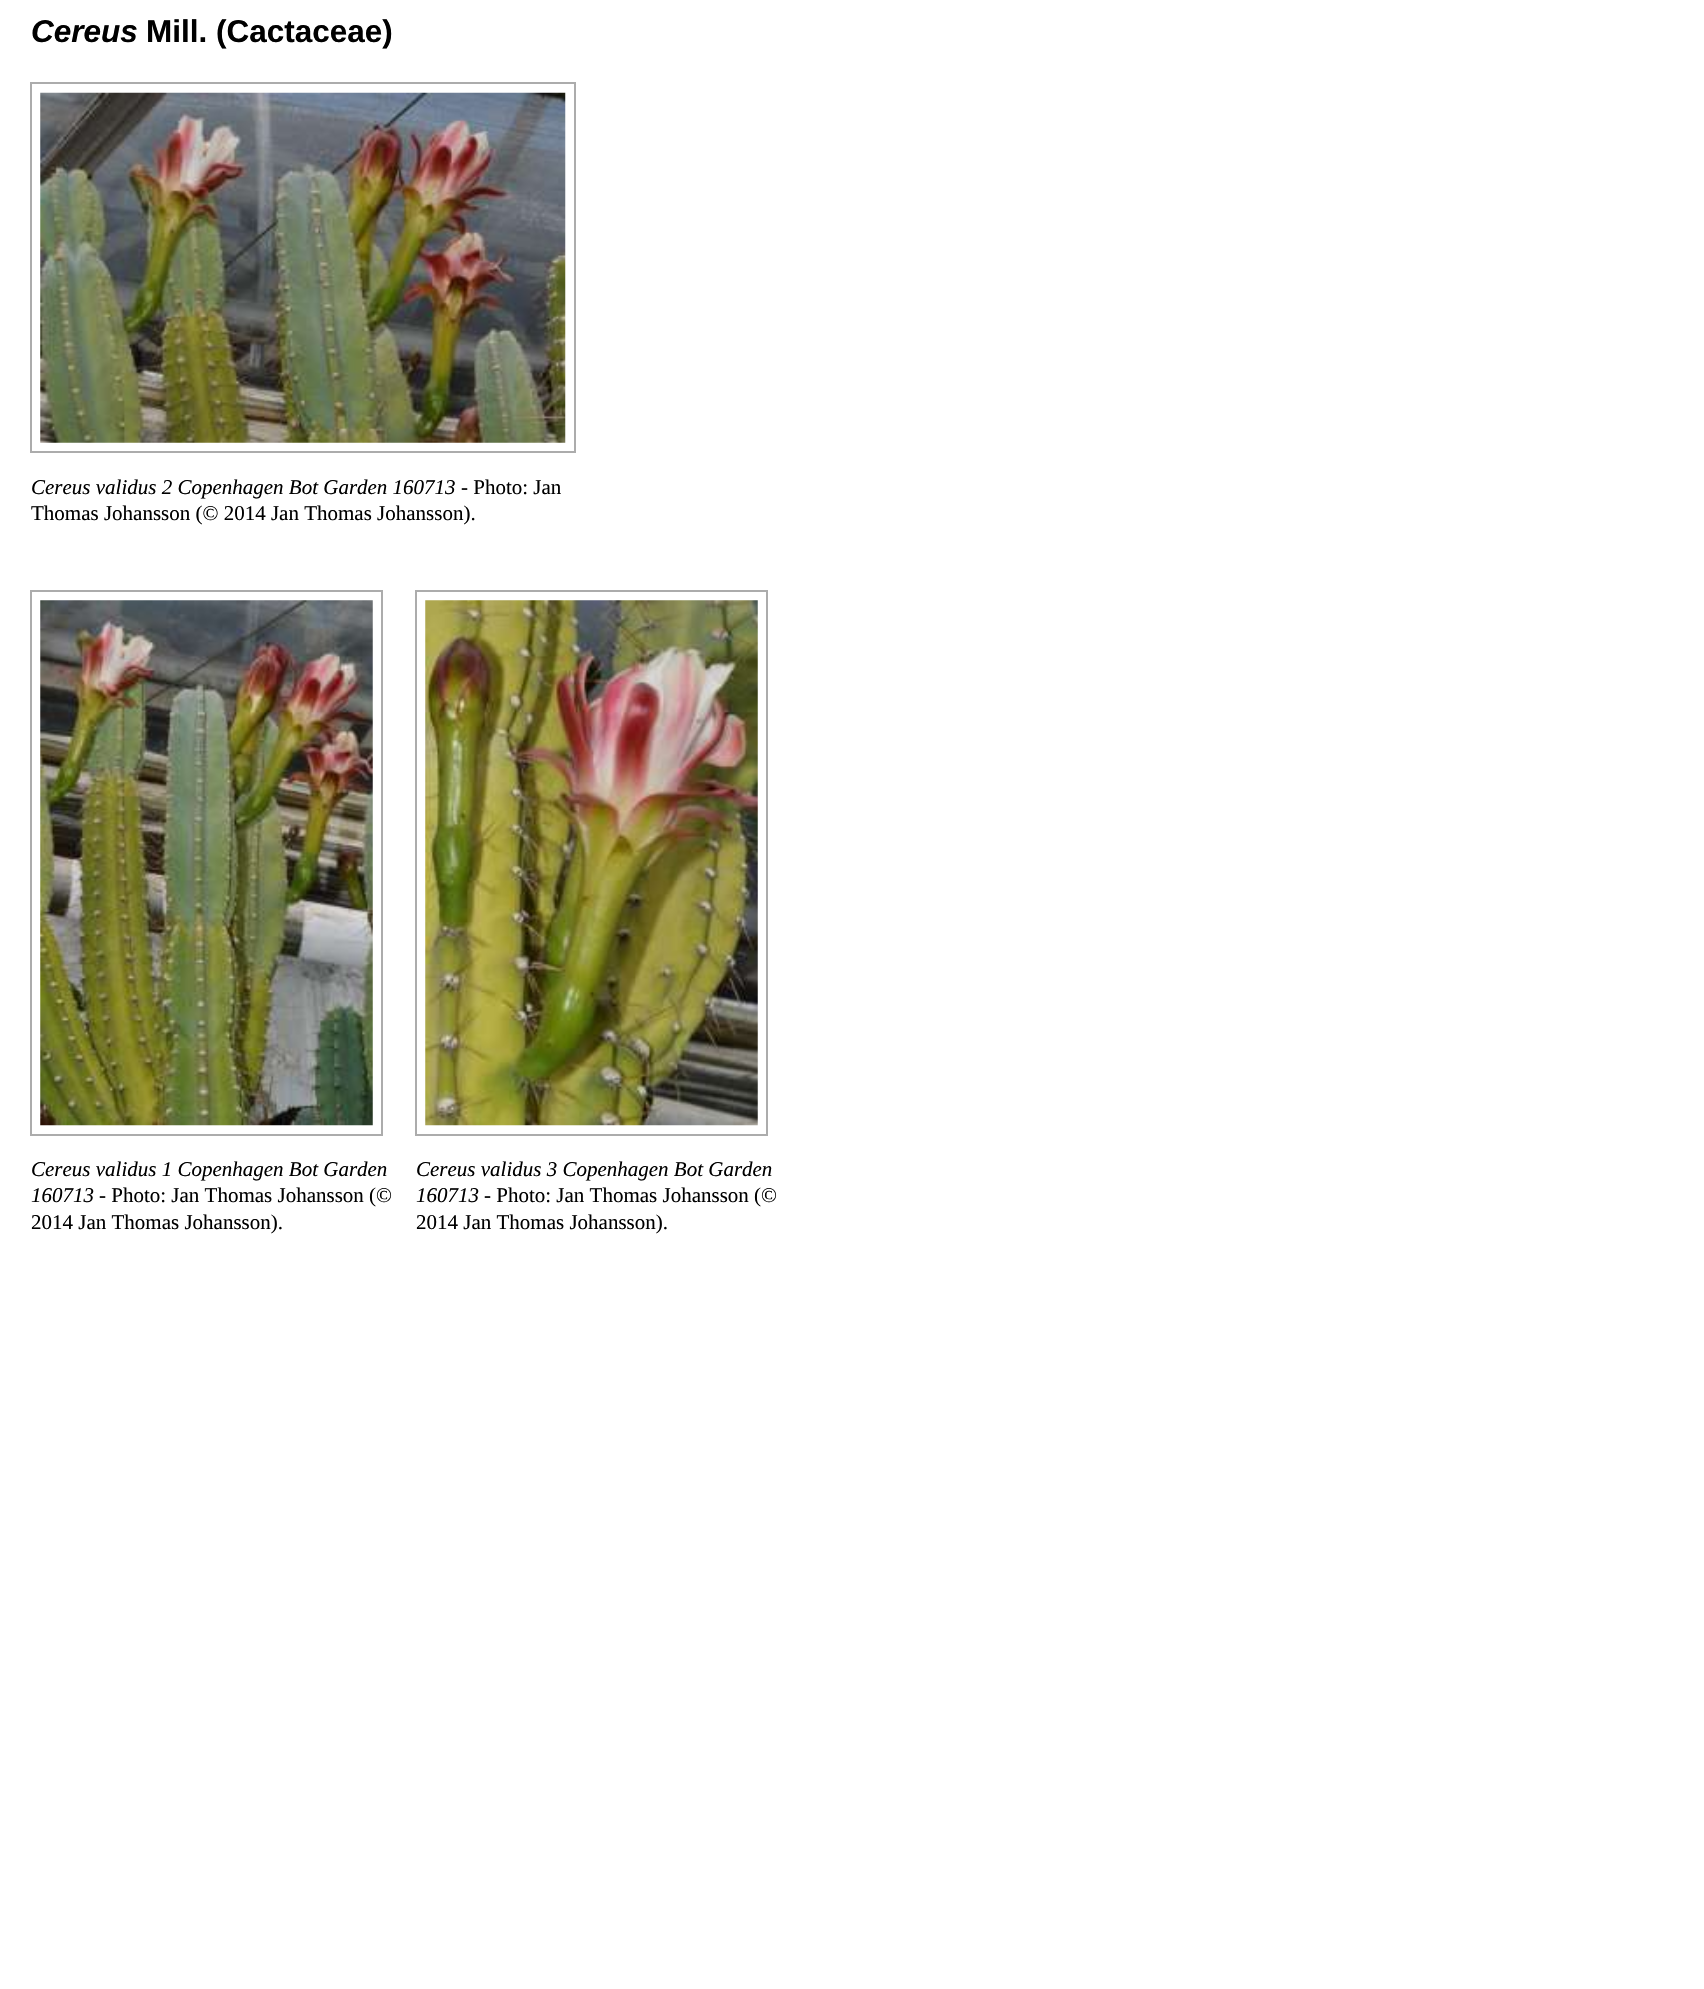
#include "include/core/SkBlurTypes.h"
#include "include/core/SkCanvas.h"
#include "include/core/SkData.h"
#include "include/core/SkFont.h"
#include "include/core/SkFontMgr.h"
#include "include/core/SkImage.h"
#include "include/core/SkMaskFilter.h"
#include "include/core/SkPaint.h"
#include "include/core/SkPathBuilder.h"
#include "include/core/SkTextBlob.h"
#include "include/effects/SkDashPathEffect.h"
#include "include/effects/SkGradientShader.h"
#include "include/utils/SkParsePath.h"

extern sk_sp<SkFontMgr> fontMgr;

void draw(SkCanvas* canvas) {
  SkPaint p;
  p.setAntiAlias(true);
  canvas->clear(SK_ColorWHITE);
  p.setStyle(SkPaint::kStroke_Style);
  p.setStrokeWidth(2);
  p.setColor(SkColorSetRGB(172, 172, 172));
  canvas->drawRect(SkRect::MakeLTRB(31, 83, 575, 452), p);
  canvas->drawImageRect(SkImages::DeferredFromEncodedData(SkData::MakeFromFileName("images/1.png")), SkRect::MakeLTRB(40, 92, 566, 443), SkSamplingOptions());
  canvas->drawRect(SkRect::MakeLTRB(31, 591, 382, 1135), p);
  canvas->drawImageRect(SkImages::DeferredFromEncodedData(SkData::MakeFromFileName("images/2.png")), SkRect::MakeLTRB(40, 600, 373, 1126), SkSamplingOptions());
  canvas->drawRect(SkRect::MakeLTRB(416, 591, 767, 1135), p);
  canvas->drawImageRect(SkImages::DeferredFromEncodedData(SkData::MakeFromFileName("images/3.png")), SkRect::MakeLTRB(425, 600, 758, 1126), SkSamplingOptions());
  SkFont font1(fontMgr->matchFamilyStyle("Liberation Sans", SkFontStyle::BoldItalic()), 31.5f);
  font1.setSubpixel(true);
  p.setStyle(SkPaint::kFill_Style);
  p.setColor(SK_ColorBLACK);
  canvas->drawString("Cereus", 31, 42, font1, p);
  SkFont font2(fontMgr->matchFamilyStyle("Liberation Sans", SkFontStyle::Bold()), 31.5f);
  font2.setSubpixel(true);
  canvas->drawString("Mill. (Cactaceae)", 146, 42, font2, p);
  SkFont font3(fontMgr->matchFamilyStyle("Liberation Serif", SkFontStyle::Italic()), 21);
  font3.setSubpixel(true);
  canvas->drawString("Cereus validus 2 Copenhagen Bot Garden 160713", 31, 494, font3, p);
  SkFont font4(fontMgr->matchFamilyStyle("Liberation Serif", SkFontStyle::Normal()), 21);
  font4.setSubpixel(true);
  canvas->drawString("- Photo: Jan", 461, 494, font4, p);
  canvas->drawString("Thomas Johansson (© 2014 Jan Thomas Johansson).", 31, 520, font4, p);
  canvas->drawString("Cereus validus 1 Copenhagen Bot Garden", 31, 1176, font3, p);
  canvas->drawString("160713", 31, 1202, font3, p);
  canvas->drawString("- Photo: Jan Thomas Johansson (©", 99, 1202, font4, p);
  canvas->drawString("2014 Jan Thomas Johansson).", 31, 1229, font4, p);
  canvas->drawString("Cereus validus 3 Copenhagen Bot Garden", 416, 1176, font3, p);
  canvas->drawString("160713", 416, 1202, font3, p);
  canvas->drawString("- Photo: Jan Thomas Johansson (©", 484, 1202, font4, p);
  canvas->drawString("2014 Jan Thomas Johansson).", 416, 1229, font4, p);
}
